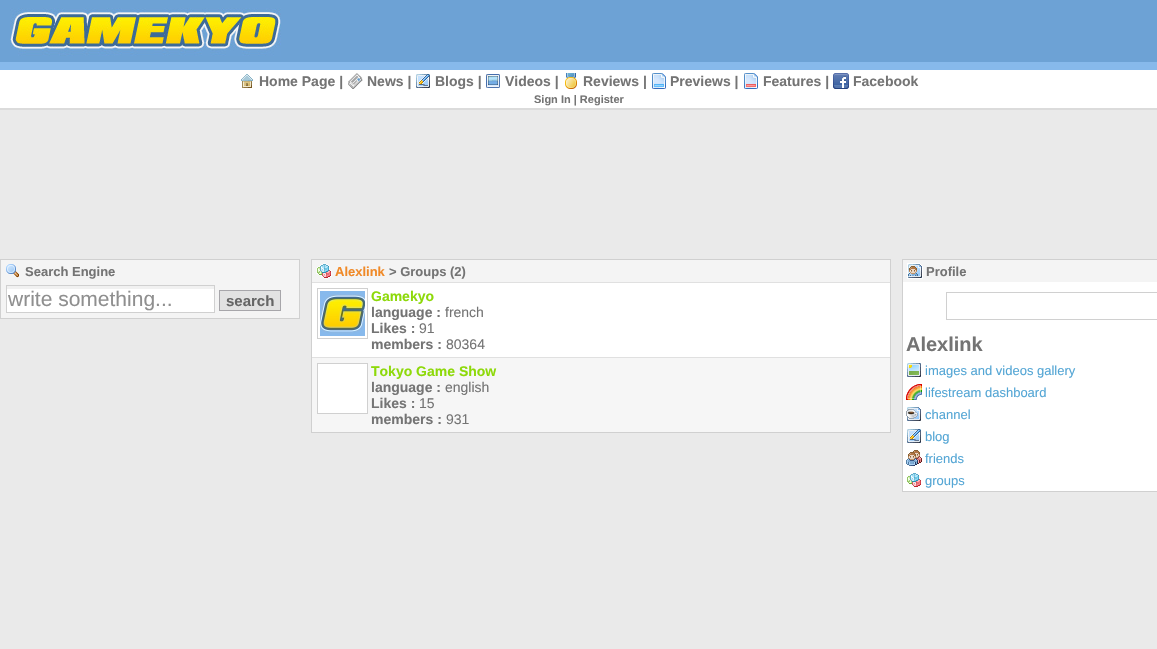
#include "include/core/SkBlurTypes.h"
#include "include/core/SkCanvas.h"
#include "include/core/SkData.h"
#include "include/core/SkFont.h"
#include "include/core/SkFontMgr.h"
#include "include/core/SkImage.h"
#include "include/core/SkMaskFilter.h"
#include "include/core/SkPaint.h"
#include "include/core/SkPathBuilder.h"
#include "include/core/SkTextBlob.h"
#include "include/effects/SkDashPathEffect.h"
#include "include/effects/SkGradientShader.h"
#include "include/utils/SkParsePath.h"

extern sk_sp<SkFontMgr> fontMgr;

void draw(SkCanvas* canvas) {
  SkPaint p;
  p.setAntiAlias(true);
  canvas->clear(SkColorSetRGB(234, 234, 234));
  p.setColor(SkColorSetRGB(109, 162, 213));
  canvas->drawRect(SkRect::MakeLTRB(0, 0, 1157, 62), p);
  p.setColor(SkColorSetRGB(135, 185, 235));
  canvas->drawRect(SkRect::MakeLTRB(0, 62, 1157, 70), p);
  canvas->drawImageRect(SkImages::DeferredFromEncodedData(SkData::MakeFromFileName("images/1.png")), SkRect::MakeLTRB(10, 8, 281, 56), SkSamplingOptions());
  p.setColor(SK_ColorWHITE);
  canvas->drawRect(SkRect::MakeLTRB(0, 70, 1157, 108), p);
  canvas->drawImageRect(SkImages::DeferredFromEncodedData(SkData::MakeFromFileName("images/2.png")), SkRect::MakeLTRB(241, 74, 253, 88), SkSamplingOptions());
  canvas->drawImageRect(SkImages::DeferredFromEncodedData(SkData::MakeFromFileName("images/3.png")), SkRect::MakeLTRB(348, 73, 363, 89), SkSamplingOptions());
  canvas->drawImageRect(SkImages::DeferredFromEncodedData(SkData::MakeFromFileName("images/4.png")), SkRect::MakeLTRB(416, 74, 430, 88), SkSamplingOptions());
  canvas->drawImageRect(SkImages::DeferredFromEncodedData(SkData::MakeFromFileName("images/5.png")), SkRect::MakeLTRB(486, 74, 500, 88), SkSamplingOptions());
  canvas->drawImageRect(SkImages::DeferredFromEncodedData(SkData::MakeFromFileName("images/6.png")), SkRect::MakeLTRB(565, 73, 577, 89), SkSamplingOptions());
  canvas->drawImageRect(SkImages::DeferredFromEncodedData(SkData::MakeFromFileName("images/7.png")), SkRect::MakeLTRB(652, 73, 666, 89), SkSamplingOptions());
  canvas->drawImageRect(SkImages::DeferredFromEncodedData(SkData::MakeFromFileName("images/8.png")), SkRect::MakeLTRB(744, 73, 758, 89), SkSamplingOptions());
  canvas->drawImageRect(SkImages::DeferredFromEncodedData(SkData::MakeFromFileName("images/9.png")), SkRect::MakeLTRB(833, 73, 849, 89), SkSamplingOptions());
  p.setColor(SkColorSetRGB(219, 219, 219));
  canvas->drawRect(SkRect::MakeLTRB(0, 108, 1157, 110), p);
  p.setColor(SkColorSetRGB(244, 244, 244));
  canvas->drawRect(SkRect::MakeLTRB(0.5f, 259.5f, 299.5f, 318.5f), p);
  p.setStyle(SkPaint::kStroke_Style);
  p.setStrokeWidth(1);
  p.setColor(SkColorSetRGB(208, 208, 208));
  canvas->drawRect(SkRect::MakeLTRB(0.5f, 259.5f, 299.5f, 318.5f), p);
  canvas->drawImageRect(SkImages::DeferredFromEncodedData(SkData::MakeFromFileName("images/10.png")), SkRect::MakeLTRB(6, 264, 19, 278), SkSamplingOptions());
  p.setStyle(SkPaint::kFill_Style);
  p.setColor(SK_ColorWHITE);
  canvas->drawRect(SkRect::MakeLTRB(7, 289, 214, 312), p);
  p.setColor(SkColorSetRGB(241, 241, 241));
  canvas->drawRect(SkRect::MakeLTRB(6, 286, 215, 289), p);
  p.setStyle(SkPaint::kStroke_Style);
  p.setColor(SkColorSetRGB(208, 208, 208));
  canvas->drawRect(SkRect::MakeLTRB(6.5f, 285.5f, 214.5f, 312.5f), p);
  p.setStyle(SkPaint::kFill_Style);
  p.setColor(SkColorSetRGB(226, 226, 226));
  canvas->drawRect(SkRect::MakeLTRB(219.5f, 290.5f, 280.5f, 310.5f), p);
  p.setStyle(SkPaint::kStroke_Style);
  p.setColor(SkColorSetRGB(167, 166, 170));
  canvas->drawRect(SkRect::MakeLTRB(219.5f, 290.5f, 280.5f, 310.5f), p);
  p.setStyle(SkPaint::kFill_Style);
  p.setColor(SkColorSetRGB(244, 244, 244));
  canvas->drawRect(SkRect::MakeLTRB(312, 260, 890, 282), p);
  p.setStyle(SkPaint::kStroke_Style);
  p.setColor(SkColorSetRGB(208, 208, 208));
  canvas->drawRect(SkRect::MakeLTRB(311.5f, 259.5f, 890.5f, 432.5f), p);
  canvas->drawImageRect(SkImages::DeferredFromEncodedData(SkData::MakeFromFileName("images/11.png")), SkRect::MakeLTRB(316, 263, 332, 279), SkSamplingOptions());
  p.setStyle(SkPaint::kFill_Style);
  p.setColor(SK_ColorWHITE);
  canvas->drawRect(SkRect::MakeLTRB(312, 283, 890, 357), p);
  p.setColor(SkColorSetRGB(224, 224, 224));
  canvas->drawRect(SkRect::MakeLTRB(312, 282, 890, 283), p);
  p.setStyle(SkPaint::kStroke_Style);
  p.setColor(SkColorSetRGB(208, 208, 208));
  canvas->drawRect(SkRect::MakeLTRB(317.5f, 288.5f, 367.5f, 338.5f), p);
  canvas->drawImageRect(SkImages::DeferredFromEncodedData(SkData::MakeFromFileName("images/12.png")), SkRect::MakeLTRB(320, 291, 365, 336), SkSamplingOptions());
  p.setStyle(SkPaint::kFill_Style);
  p.setColor(SkColorSetRGB(246, 246, 246));
  canvas->drawRect(SkRect::MakeLTRB(312, 358, 890, 432), p);
  p.setColor(SkColorSetRGB(224, 224, 224));
  canvas->drawRect(SkRect::MakeLTRB(312, 357, 890, 358), p);
  p.setColor(SK_ColorWHITE);
  canvas->drawRect(SkRect::MakeLTRB(317.5f, 363.5f, 367.5f, 413.5f), p);
  p.setStyle(SkPaint::kStroke_Style);
  p.setColor(SkColorSetRGB(208, 208, 208));
  canvas->drawRect(SkRect::MakeLTRB(317.5f, 363.5f, 367.5f, 413.5f), p);
  p.setStyle(SkPaint::kFill_Style);
  p.setColor(SkColorSetRGB(244, 244, 244));
  canvas->drawRect(SkRect::MakeLTRB(903, 260, 1157, 282), p);
  p.setStyle(SkPaint::kStroke_Style);
  p.setColor(SkColorSetRGB(208, 208, 208));
  canvas->drawRect(SkRect::MakeLTRB(902.5f, 259.5f, 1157.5f, 491.5f), p);
  canvas->drawImageRect(SkImages::DeferredFromEncodedData(SkData::MakeFromFileName("images/13.png")), SkRect::MakeLTRB(907, 263, 923, 279), SkSamplingOptions());
  p.setStyle(SkPaint::kFill_Style);
  p.setColor(SK_ColorWHITE);
  canvas->drawRect(SkRect::MakeLTRB(903, 282, 1157, 491), p);
  p.setStyle(SkPaint::kStroke_Style);
  p.setColor(SkColorSetRGB(208, 208, 208));
  canvas->drawRect(SkRect::MakeLTRB(946.5f, 292.5f, 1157.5f, 319.5f), p);
  canvas->drawImageRect(SkImages::DeferredFromEncodedData(SkData::MakeFromFileName("images/14.png")), SkRect::MakeLTRB(907, 363, 921, 377), SkSamplingOptions());
  canvas->drawImageRect(SkImages::DeferredFromEncodedData(SkData::MakeFromFileName("images/15.png")), SkRect::MakeLTRB(906, 384, 922, 400), SkSamplingOptions());
  canvas->drawImageRect(SkImages::DeferredFromEncodedData(SkData::MakeFromFileName("images/16.png")), SkRect::MakeLTRB(906, 407, 921, 421), SkSamplingOptions());
  canvas->drawImageRect(SkImages::DeferredFromEncodedData(SkData::MakeFromFileName("images/4.png")), SkRect::MakeLTRB(907, 429, 921, 443), SkSamplingOptions());
  canvas->drawImageRect(SkImages::DeferredFromEncodedData(SkData::MakeFromFileName("images/17.png")), SkRect::MakeLTRB(906, 450, 922, 466), SkSamplingOptions());
  canvas->drawImageRect(SkImages::DeferredFromEncodedData(SkData::MakeFromFileName("images/18.png")), SkRect::MakeLTRB(907, 473, 921, 487), SkSamplingOptions());
  SkFont font1(fontMgr->matchFamilyStyle("Liberation Sans", SkFontStyle::Bold()), 14);
  font1.setSubpixel(true);
  p.setStyle(SkPaint::kFill_Style);
  p.setColor(SkColorSetRGB(116, 116, 116));
  canvas->drawString("Home Page |", 259, 86, font1, p);
  canvas->drawString("News |", 367, 86, font1, p);
  canvas->drawString("Blogs |", 435, 86, font1, p);
  canvas->drawString("Videos |", 505, 86, font1, p);
  canvas->drawString("Reviews |", 583, 86, font1, p);
  canvas->drawString("Previews |", 670, 86, font1, p);
  canvas->drawString("Features |", 763, 86, font1, p);
  canvas->drawString("Facebook", 853, 86, font1, p);
  SkFont font2(fontMgr->matchFamilyStyle("Liberation Sans", SkFontStyle::Bold()), 11);
  font2.setSubpixel(true);
  canvas->drawString("Sign In | Register", 534, 103, font2, p);
  SkFont font3(fontMgr->matchFamilyStyle("Liberation Sans", SkFontStyle::Bold()), 13);
  font3.setSubpixel(true);
  canvas->drawString("Search Engine", 25, 276, font3, p);
  SkFont font4(fontMgr->matchFamilyStyle("Liberation Sans", SkFontStyle::Normal()), 21);
  font4.setSubpixel(true);
  p.setColor(SkColorSetRGB(143, 143, 143));
  canvas->drawString("write something...", 8, 306, font4, p);
  SkFont font5(fontMgr->matchFamilyStyle("Liberation Sans", SkFontStyle::Bold()), 15);
  font5.setSubpixel(true);
  p.setColor(SkColorSetRGB(102, 102, 102));
  canvas->drawString("search", 226, 306, font5, p);
  p.setColor(SkColorSetRGB(240, 138, 40));
  canvas->drawString("Alexlink", 335, 276, font3, p);
  p.setColor(SkColorSetRGB(116, 116, 116));
  canvas->drawString("> Groups (2)", 389, 276, font3, p);
  p.setColor(SkColorSetRGB(141, 217, 9));
  canvas->drawString("Gamekyo", 371, 301, font1, p);
  p.setColor(SkColorSetRGB(116, 116, 116));
  canvas->drawString("language :", 371, 317, font1, p);
  SkFont font6(fontMgr->matchFamilyStyle("Liberation Sans", SkFontStyle::Normal()), 14);
  font6.setSubpixel(true);
  canvas->drawString("french", 445, 317, font6, p);
  canvas->drawString("Likes :", 371, 333, font1, p);
  canvas->drawString("91", 419, 333, font6, p);
  canvas->drawString("members :", 371, 349, font1, p);
  canvas->drawString("80364", 446, 349, font6, p);
  p.setColor(SkColorSetRGB(141, 217, 9));
  canvas->drawString("Tokyo Game Show", 371, 376, font1, p);
  p.setColor(SkColorSetRGB(116, 116, 116));
  canvas->drawString("language :", 371, 392, font1, p);
  canvas->drawString("english", 445, 392, font6, p);
  canvas->drawString("Likes :", 371, 408, font1, p);
  canvas->drawString("15", 419, 408, font6, p);
  canvas->drawString("members :", 371, 424, font1, p);
  canvas->drawString("931", 446, 424, font6, p);
  canvas->drawString("Profile", 926, 276, font3, p);
  SkFont font7(fontMgr->matchFamilyStyle("Liberation Sans", SkFontStyle::Bold()), 20);
  font7.setSubpixel(true);
  canvas->drawString("Alexlink", 906, 351, font7, p);
  SkFont font8(fontMgr->matchFamilyStyle("Liberation Sans", SkFontStyle::Normal()), 13);
  font8.setSubpixel(true);
  p.setColor(SkColorSetRGB(84, 166, 213));
  canvas->drawString("images and videos gallery", 925, 375, font8, p);
  canvas->drawString("lifestream dashboard", 925, 397, font8, p);
  canvas->drawString("channel", 925, 419, font8, p);
  canvas->drawString("blog", 925, 441, font8, p);
  canvas->drawString("friends", 925, 463, font8, p);
  canvas->drawString("groups", 925, 485, font8, p);
}
